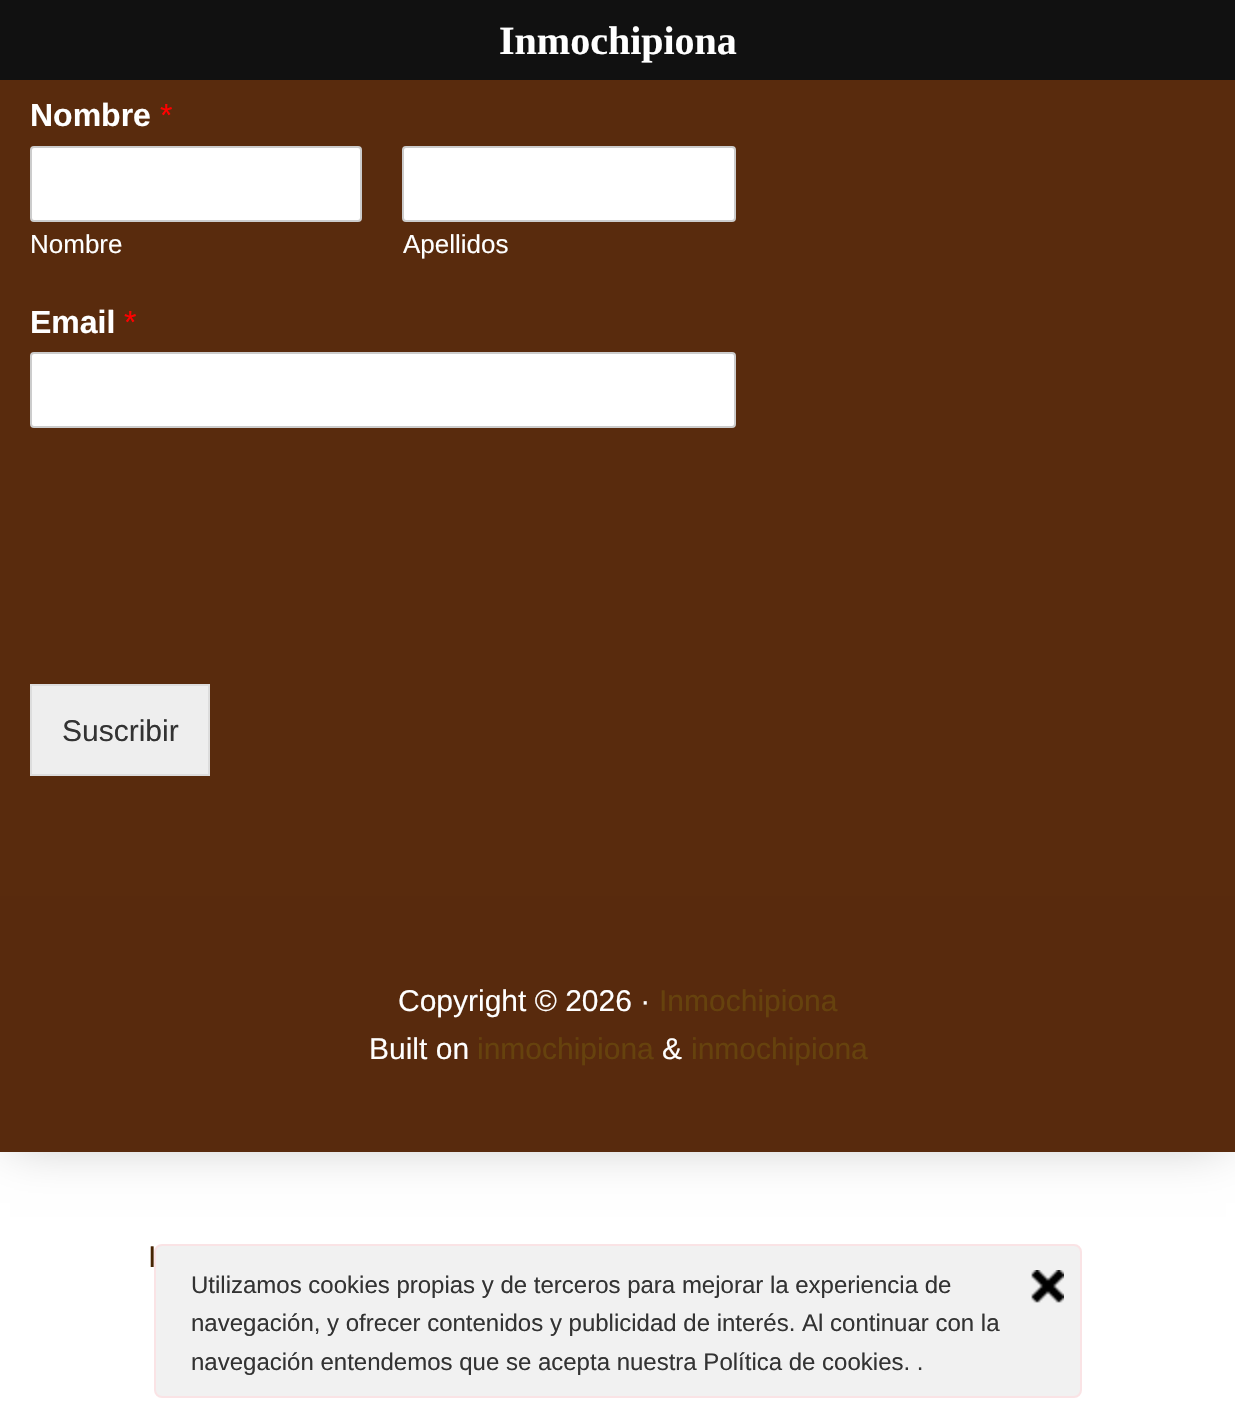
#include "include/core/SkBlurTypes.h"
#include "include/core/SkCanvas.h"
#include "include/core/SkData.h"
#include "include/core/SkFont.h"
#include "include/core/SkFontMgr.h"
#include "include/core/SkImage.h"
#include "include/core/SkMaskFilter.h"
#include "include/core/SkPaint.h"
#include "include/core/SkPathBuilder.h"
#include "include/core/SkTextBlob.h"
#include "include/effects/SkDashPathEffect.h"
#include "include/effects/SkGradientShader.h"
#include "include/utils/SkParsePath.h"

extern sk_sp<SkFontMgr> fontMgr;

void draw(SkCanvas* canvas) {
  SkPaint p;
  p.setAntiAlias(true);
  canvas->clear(SK_ColorWHITE);
  p.setColor(SkColorSetARGB(64, 0, 0, 0));
  p.setMaskFilter(SkMaskFilter::MakeBlur(kNormal_SkBlurStyle, 25));
  canvas->drawRect(SkRect::MakeLTRB(10, -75, 1226, 1142), p);
  p.setMaskFilter(nullptr);
  p.setColor(SkColorSetRGB(17, 17, 17));
  canvas->drawRect(SkRect::MakeLTRB(0, 0, 1235, 80), p);
  p.setColor(SkColorSetRGB(89, 43, 13));
  canvas->drawRect(SkRect::MakeLTRB(0, 80, 1235, 896), p);
  p.setColor(SK_ColorWHITE);
  canvas->drawRoundRect(SkRect::MakeLTRB(31, 147, 361, 221), 3, 3, p);
  p.setStyle(SkPaint::kStroke_Style);
  p.setStrokeWidth(2);
  p.setColor(SkColorSetRGB(204, 204, 204));
  canvas->drawRoundRect(SkRect::MakeLTRB(31, 147, 361, 221), 3, 3, p);
  p.setStyle(SkPaint::kFill_Style);
  p.setColor(SK_ColorWHITE);
  canvas->drawRoundRect(SkRect::MakeLTRB(403, 147, 735, 221), 3, 3, p);
  p.setStyle(SkPaint::kStroke_Style);
  p.setColor(SkColorSetRGB(204, 204, 204));
  canvas->drawRoundRect(SkRect::MakeLTRB(403, 147, 735, 221), 3, 3, p);
  p.setStyle(SkPaint::kFill_Style);
  p.setColor(SK_ColorWHITE);
  canvas->drawRoundRect(SkRect::MakeLTRB(31, 353, 735, 427), 3, 3, p);
  p.setStyle(SkPaint::kStroke_Style);
  p.setColor(SkColorSetRGB(204, 204, 204));
  canvas->drawRoundRect(SkRect::MakeLTRB(31, 353, 735, 427), 3, 3, p);
  p.setStyle(SkPaint::kFill_Style);
  p.setColor(SkColorSetRGB(238, 238, 238));
  canvas->drawRect(SkRect::MakeLTRB(31, 685, 209, 775), p);
  p.setStyle(SkPaint::kStroke_Style);
  p.setColor(SkColorSetRGB(221, 221, 221));
  canvas->drawRect(SkRect::MakeLTRB(31, 685, 209, 775), p);
  p.setStyle(SkPaint::kFill_Style);
  p.setColor(SkColorSetRGB(88, 42, 13));
  canvas->drawRect(SkRect::MakeLTRB(0, 896, 1235, 1152), p);
  p.setColor(SkColorSetRGB(241, 241, 241));
  canvas->drawRoundRect(SkRect::MakeLTRB(155, 1245, 1081, 1397), 7, 7, p);
  p.setStyle(SkPaint::kStroke_Style);
  p.setColor(SkColorSetRGB(250, 227, 229));
  canvas->drawRoundRect(SkRect::MakeLTRB(155, 1245, 1081, 1397), 7, 7, p);
  canvas->drawImageRect(SkImages::DeferredFromEncodedData(SkData::MakeFromFileName("images/1.png")), SkRect::MakeLTRB(1031, 1270, 1064, 1303), SkSamplingOptions());
  SkFont font1(fontMgr->matchFamilyStyle("Liberation Serif", SkFontStyle::Bold()), 40);
  font1.setSubpixel(true);
  p.setStyle(SkPaint::kFill_Style);
  p.setColor(SK_ColorWHITE);
  canvas->drawString("Inmochipiona", 499, 54, font1, p);
  SkFont font2(fontMgr->matchFamilyStyle("Liberation Sans", SkFontStyle::Bold()), 32);
  font2.setSubpixel(true);
  canvas->drawString("Nombre", 30, 126, font2, p);
  SkFont font3(fontMgr->matchFamilyStyle("Liberation Sans", SkFontStyle::Normal()), 32);
  font3.setSubpixel(true);
  p.setColor(SkColorSetRGB(255, 0, 0));
  canvas->drawString("*", 160, 126, font3, p);
  SkFont font4(fontMgr->matchFamilyStyle("Liberation Sans", SkFontStyle::Normal()), 26);
  font4.setSubpixel(true);
  p.setColor(SK_ColorWHITE);
  canvas->drawString("Nombre", 30, 253, font4, p);
  canvas->drawString("Apellidos", 403, 253, font4, p);
  canvas->drawString("Email", 30, 333, font2, p);
  p.setColor(SkColorSetRGB(255, 0, 0));
  canvas->drawString("*", 124, 333, font3, p);
  SkFont font5(fontMgr->matchFamilyStyle("Liberation Sans", SkFontStyle::Normal()), 30);
  font5.setSubpixel(true);
  p.setColor(SkColorSetRGB(51, 51, 51));
  canvas->drawString("Suscribir", 62, 741, font5, p);
  p.setColor(SK_ColorWHITE);
  canvas->drawString("Copyright © 2026 ·", 398, 1011, font5, p);
  p.setColor(SkColorSetRGB(102, 66, 13));
  canvas->drawString("Inmochipiona", 659, 1011, font5, p);
  p.setColor(SK_ColorWHITE);
  canvas->drawString("Built on", 369, 1059, font5, p);
  p.setColor(SkColorSetRGB(102, 66, 13));
  canvas->drawString("inmochipiona", 477, 1059, font5, p);
  p.setColor(SK_ColorWHITE);
  canvas->drawString("&", 662, 1059, font5, p);
  p.setColor(SkColorSetRGB(102, 66, 13));
  canvas->drawString("inmochipiona", 691, 1059, font5, p);
  p.setColor(SkColorSetRGB(71, 36, 2));
  canvas->drawString("I", 148, 1267, font5, p);
  SkFont font6(fontMgr->matchFamilyStyle("Liberation Sans", SkFontStyle::Normal()), 24);
  font6.setSubpixel(true);
  p.setColor(SkColorSetRGB(51, 51, 51));
  canvas->drawString("Utilizamos cookies propias y de terceros para mejorar la experiencia de", 191, 1293, font6, p);
  canvas->drawString("navegación, y ofrecer contenidos y publicidad de interés. Al continuar con la", 191, 1331, font6, p);
  canvas->drawString("navegación entendemos que se acepta nuestra Política de cookies. .", 191, 1370, font6, p);
}
